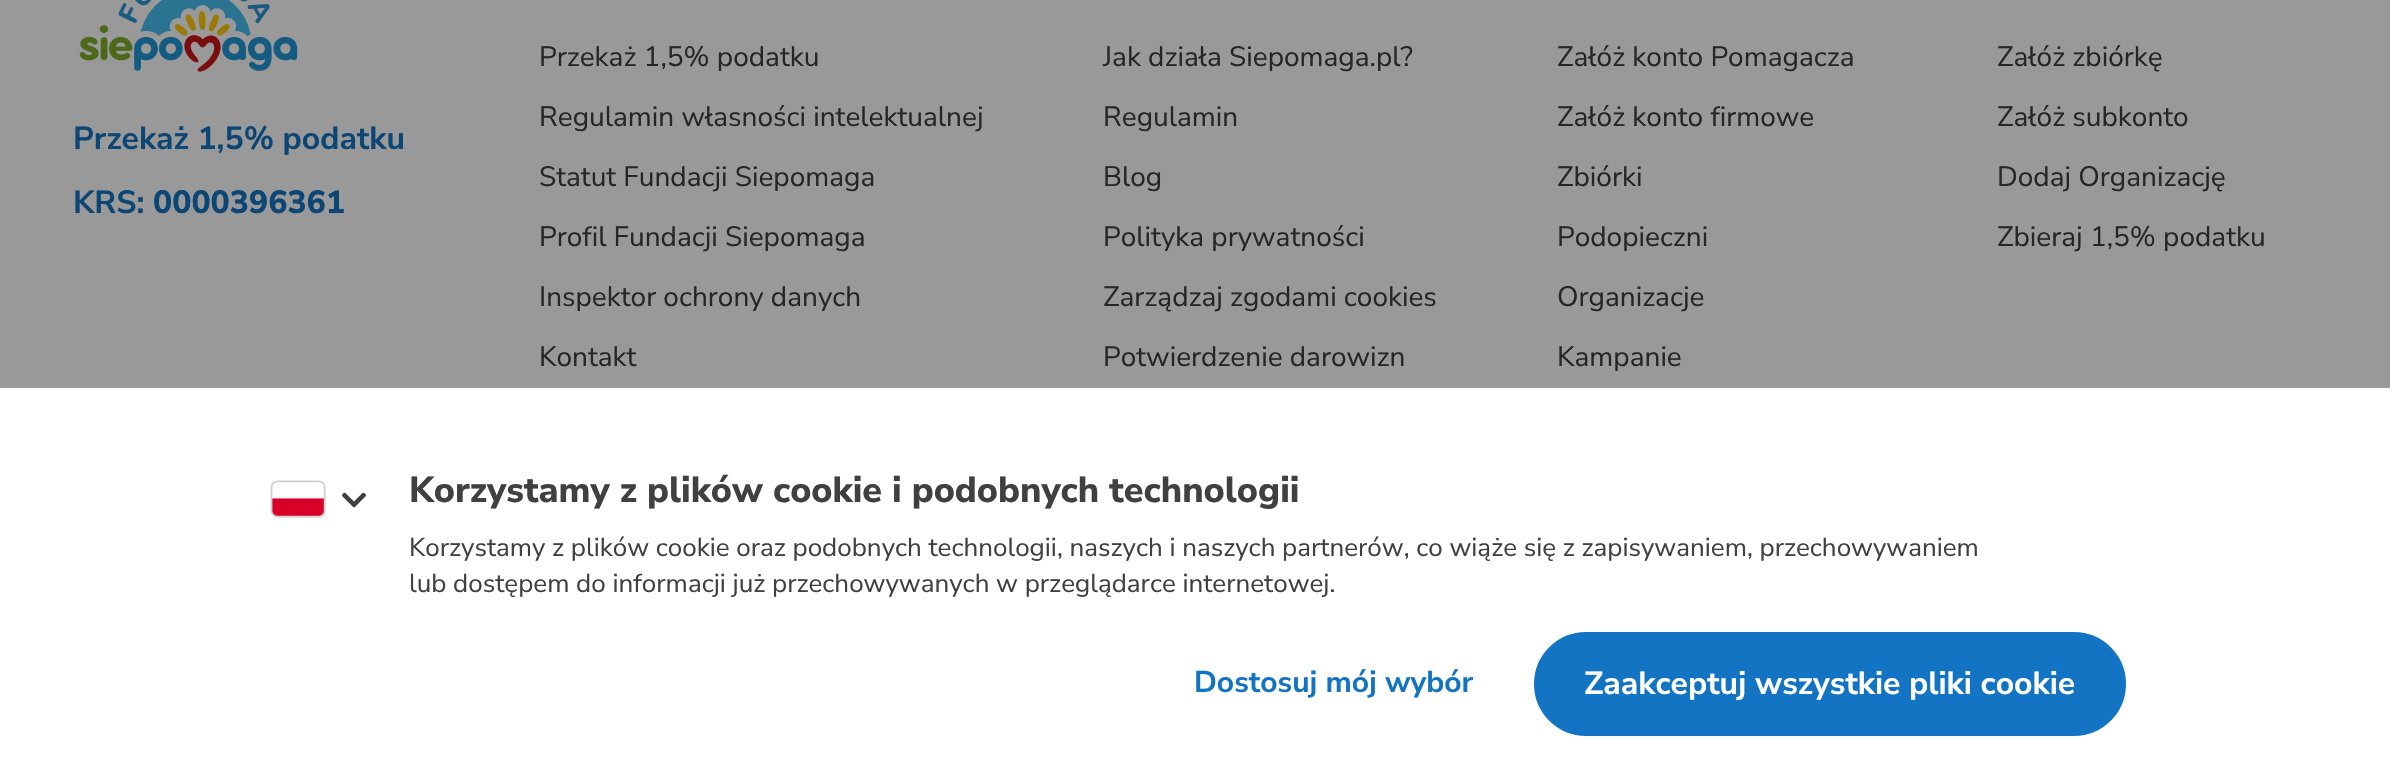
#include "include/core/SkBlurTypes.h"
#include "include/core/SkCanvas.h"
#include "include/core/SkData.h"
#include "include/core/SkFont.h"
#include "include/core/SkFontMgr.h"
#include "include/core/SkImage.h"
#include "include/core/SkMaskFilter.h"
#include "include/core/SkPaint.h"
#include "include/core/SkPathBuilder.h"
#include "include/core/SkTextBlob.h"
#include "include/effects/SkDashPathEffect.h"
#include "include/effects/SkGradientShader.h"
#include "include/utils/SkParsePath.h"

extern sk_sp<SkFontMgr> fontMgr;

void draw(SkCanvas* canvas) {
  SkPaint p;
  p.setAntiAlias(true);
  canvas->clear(SkColorSetRGB(153, 153, 153));
  canvas->drawImageRect(SkImages::DeferredFromEncodedData(SkData::MakeFromFileName("images/1.png")), SkRect::MakeLTRB(79, 0, 298, 72), SkSamplingOptions());
  p.setColor(SK_ColorWHITE);
  canvas->drawRect(SkRect::MakeLTRB(0, 388, 2390, 776), p);
  canvas->drawImageRect(SkImages::DeferredFromEncodedData(SkData::MakeFromFileName("images/2.png")), SkRect::MakeLTRB(270, 480, 326, 518), SkSamplingOptions());
  canvas->drawImageRect(SkImages::DeferredFromEncodedData(SkData::MakeFromFileName("images/3.png")), SkRect::MakeLTRB(342, 492, 366, 508), SkSamplingOptions());
  p.setColor(SkColorSetRGB(18, 116, 195));
  canvas->drawRoundRect(SkRect::MakeLTRB(1535, 633, 2125, 735), 51, 51, p);
  p.setStyle(SkPaint::kStroke_Style);
  p.setStrokeWidth(2);
  canvas->drawRoundRect(SkRect::MakeLTRB(1535, 633, 2125, 735), 51, 51, p);
  SkFont font1(fontMgr->matchFamilyStyle("Nunito Sans", SkFontStyle::Bold()), 32);
  font1.setSubpixel(true);
  p.setStyle(SkPaint::kFill_Style);
  p.setColor(SkColorSetRGB(11, 70, 117));
  canvas->drawString("Przekaż 1,5% podatku", 73, 149, font1, p);
  canvas->drawString("KRS:", 73, 213, font1, p);
  SkFont font2(fontMgr->matchFamilyStyle("Nunito Sans", SkFontStyle(800, SkFontStyle::kNormal_Width, SkFontStyle::kUpright_Slant)), 32);
  font2.setSubpixel(true);
  canvas->drawString("0000396361", 153, 213, font2, p);
  SkFont font3(fontMgr->matchFamilyStyle("Nunito Sans", SkFontStyle::Normal()), 28);
  font3.setSubpixel(true);
  p.setColor(SkColorSetRGB(38, 38, 38));
  canvas->drawString("Przekaż 1,5% podatku", 539, 66, font3, p);
  canvas->drawString("Regulamin własności intelektualnej", 539, 126, font3, p);
  canvas->drawString("Statut Fundacji Siepomaga", 539, 186, font3, p);
  canvas->drawString("Profil Fundacji Siepomaga", 539, 246, font3, p);
  canvas->drawString("Inspektor ochrony danych", 539, 306, font3, p);
  canvas->drawString("Kontakt", 539, 366, font3, p);
  canvas->drawString("Jak działa Siepomaga.pl?", 1103, 66, font3, p);
  canvas->drawString("Regulamin", 1103, 126, font3, p);
  canvas->drawString("Blog", 1103, 186, font3, p);
  canvas->drawString("Polityka prywatności", 1103, 246, font3, p);
  canvas->drawString("Zarządzaj zgodami cookies", 1103, 306, font3, p);
  canvas->drawString("Potwierdzenie darowizn", 1103, 366, font3, p);
  canvas->drawString("Załóż konto Pomagacza", 1557, 66, font3, p);
  canvas->drawString("Załóż konto firmowe", 1557, 126, font3, p);
  canvas->drawString("Zbiórki", 1557, 186, font3, p);
  canvas->drawString("Podopieczni", 1557, 246, font3, p);
  canvas->drawString("Organizacje", 1557, 306, font3, p);
  canvas->drawString("Kampanie", 1557, 366, font3, p);
  canvas->drawString("Załóż zbiórkę", 1997, 66, font3, p);
  canvas->drawString("Załóż subkonto", 1997, 126, font3, p);
  canvas->drawString("Dodaj Organizację", 1997, 186, font3, p);
  canvas->drawString("Zbieraj 1,5% podatku", 1997, 246, font3, p);
  SkFont font4(fontMgr->matchFamilyStyle("Nunito Sans", SkFontStyle(800, SkFontStyle::kNormal_Width, SkFontStyle::kUpright_Slant)), 36);
  font4.setSubpixel(true);
  p.setColor(SkColorSetRGB(64, 64, 64));
  canvas->drawString("Korzystamy z plików cookie i podobnych technologii", 409, 502, font4, p);
  SkFont font5(fontMgr->matchFamilyStyle("Nunito Sans", SkFontStyle::Normal()), 26);
  font5.setSubpixel(true);
  canvas->drawString("Korzystamy z plików cookie oraz podobnych technologii, naszych i naszych partnerów, co wiąże się z zapisywaniem, przechowywaniem", 409, 556, font5, p);
  canvas->drawString("lub dostępem do informacji już przechowywanych w przeglądarce internetowej.", 409, 592, font5, p);
  SkFont font6(fontMgr->matchFamilyStyle("Nunito Sans", SkFontStyle::Bold()), 30);
  font6.setSubpixel(true);
  p.setColor(SkColorSetRGB(18, 116, 195));
  canvas->drawString("Dostosuj mój wybór", 1194, 692, font6, p);
  p.setColor(SK_ColorWHITE);
  canvas->drawString("Zaakceptuj wszystkie pliki cookie", 1584, 694, font1, p);
}
